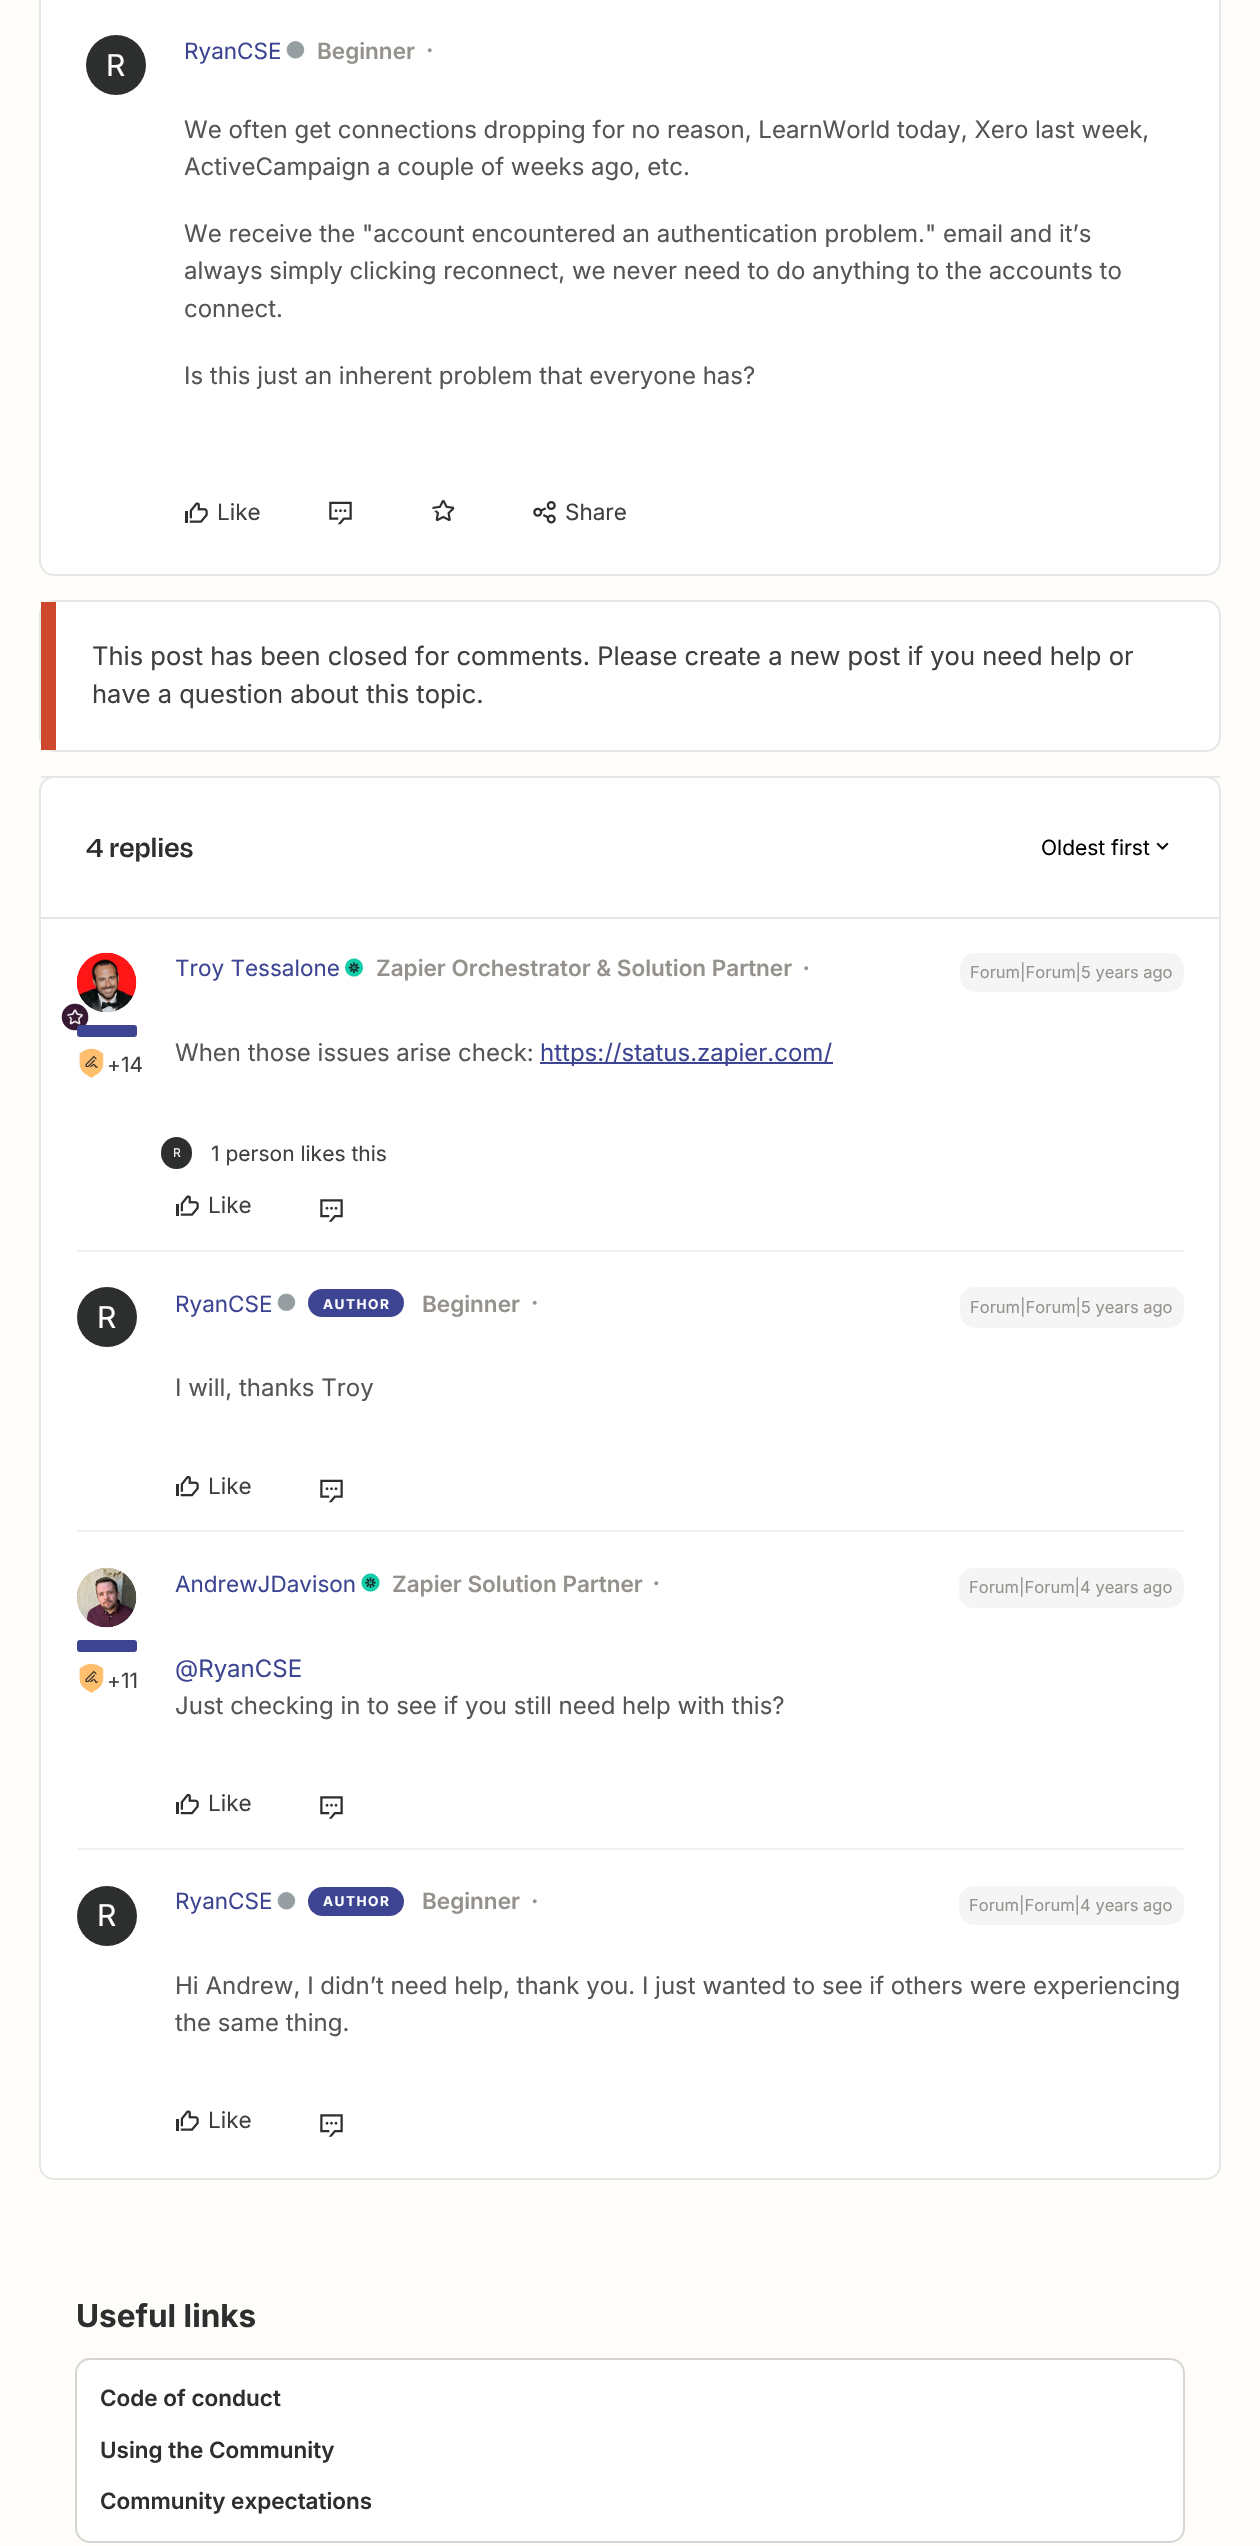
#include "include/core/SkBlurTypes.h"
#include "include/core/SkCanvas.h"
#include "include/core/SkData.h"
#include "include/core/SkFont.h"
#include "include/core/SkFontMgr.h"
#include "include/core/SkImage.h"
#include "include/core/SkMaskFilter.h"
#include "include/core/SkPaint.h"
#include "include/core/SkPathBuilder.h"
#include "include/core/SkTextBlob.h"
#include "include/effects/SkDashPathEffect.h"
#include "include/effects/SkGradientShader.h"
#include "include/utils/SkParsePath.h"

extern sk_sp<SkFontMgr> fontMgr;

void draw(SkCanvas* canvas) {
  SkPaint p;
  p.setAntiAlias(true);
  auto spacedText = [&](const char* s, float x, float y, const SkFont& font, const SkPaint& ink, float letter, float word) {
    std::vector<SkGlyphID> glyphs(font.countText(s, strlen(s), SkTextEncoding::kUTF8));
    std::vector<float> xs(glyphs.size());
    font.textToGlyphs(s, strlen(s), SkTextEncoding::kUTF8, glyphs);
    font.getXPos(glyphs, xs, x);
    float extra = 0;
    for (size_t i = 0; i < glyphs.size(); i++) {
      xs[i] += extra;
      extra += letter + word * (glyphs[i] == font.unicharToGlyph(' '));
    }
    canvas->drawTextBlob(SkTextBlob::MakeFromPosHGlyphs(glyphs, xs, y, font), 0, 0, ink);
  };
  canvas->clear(SkColorSetRGB(255, 253, 249));
  p.setColor(SK_ColorWHITE);
  canvas->drawRoundRect(SkRect::MakeLTRB(40, -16, 1220, 575), 14, 14, p);
  p.setStyle(SkPaint::kStroke_Style);
  p.setStrokeWidth(2);
  p.setColor(SkColorSetRGB(230, 230, 230));
  canvas->drawRoundRect(SkRect::MakeLTRB(40, -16, 1220, 575), 14, 14, p);
  p.setStyle(SkPaint::kFill_Style);
  p.setColor(SkColorSetRGB(45, 46, 46));
  canvas->drawCircle(116, 65, 30, p);
  canvas->drawImageRect(SkImages::DeferredFromEncodedData(SkData::MakeFromFileName("images/1.png")), SkRect::MakeLTRB(286, 41, 305, 59), SkSamplingOptions());
  canvas->drawImageRect(SkImages::DeferredFromEncodedData(SkData::MakeFromFileName("images/2.png")), SkRect::MakeLTRB(427, 48, 432, 53), SkSamplingOptions());
  canvas->drawImageRect(SkImages::DeferredFromEncodedData(SkData::MakeFromFileName("images/3.png")), SkRect::MakeLTRB(185, 502, 208, 523), SkSamplingOptions());
  canvas->drawImageRect(SkImages::DeferredFromEncodedData(SkData::MakeFromFileName("images/4.png")), SkRect::MakeLTRB(329, 501, 352, 525), SkSamplingOptions());
  canvas->drawImageRect(SkImages::DeferredFromEncodedData(SkData::MakeFromFileName("images/5.png")), SkRect::MakeLTRB(432, 500, 455, 522), SkSamplingOptions());
  canvas->drawImageRect(SkImages::DeferredFromEncodedData(SkData::MakeFromFileName("images/6.png")), SkRect::MakeLTRB(533, 501, 556, 524), SkSamplingOptions());
  p.setColor(SK_ColorWHITE);
  canvas->drawRoundRect(SkRect::MakeLTRB(40, 601, 1220, 751), 14, 14, p);
  p.setStyle(SkPaint::kStroke_Style);
  p.setColor(SkColorSetRGB(230, 230, 230));
  canvas->drawRoundRect(SkRect::MakeLTRB(40, 601, 1220, 751), 14, 14, p);
  p.setStyle(SkPaint::kFill_Style);
  p.setColor(SkColorSetRGB(206, 72, 45));
  canvas->drawRect(SkRect::MakeLTRB(41, 602, 56, 750), p);
  p.setColor(SK_ColorWHITE);
  canvas->drawRoundRect(SkRect::MakeLTRB(40, 777, 1220, 2179), 14, 14, p);
  p.setStyle(SkPaint::kStroke_Style);
  p.setColor(SkColorSetRGB(230, 230, 230));
  canvas->drawRoundRect(SkRect::MakeLTRB(40, 777, 1220, 2179), 14, 14, p);
  p.setStyle(SkPaint::kFill_Style);
  canvas->drawRect(SkRect::MakeLTRB(41, 776, 1220, 778), p);
  canvas->drawRect(SkRect::MakeLTRB(41, 917, 1220, 919), p);
  canvas->drawImageRect(SkImages::DeferredFromEncodedData(SkData::MakeFromFileName("images/7.png")), SkRect::MakeLTRB(1156, 842, 1169, 850), SkSamplingOptions());
  canvas->drawImageRect(SkImages::DeferredFromEncodedData(SkData::MakeFromFileName("images/8.png")), SkRect::MakeLTRB(345, 958, 363, 977), SkSamplingOptions());
  canvas->drawImageRect(SkImages::DeferredFromEncodedData(SkData::MakeFromFileName("images/9.png")), SkRect::MakeLTRB(804, 966, 809, 971), SkSamplingOptions());
  p.setColor(SkColorSetRGB(245, 245, 245));
  canvas->drawRoundRect(SkRect::MakeLTRB(960, 953, 1184, 992), 15, 15, p);
  canvas->drawImageRect(SkImages::DeferredFromEncodedData(SkData::MakeFromFileName("images/10.png")), SkRect::MakeLTRB(76, 952, 137, 1013), SkSamplingOptions());
  canvas->drawImageRect(SkImages::DeferredFromEncodedData(SkData::MakeFromFileName("images/11.png")), SkRect::MakeLTRB(61, 1003, 89, 1031), SkSamplingOptions());
  p.setColor(SkColorSetRGB(61, 69, 146));
  canvas->drawRoundRect(SkRect::MakeLTRB(77, 1025, 137, 1037), 3, 3, p);
  canvas->drawImageRect(SkImages::DeferredFromEncodedData(SkData::MakeFromFileName("images/12.png")), SkRect::MakeLTRB(79, 1048, 104, 1078), SkSamplingOptions());
  canvas->drawRect(SkRect::MakeLTRB(540, 1062, 833, 1064), p);
  p.setColor(SkColorSetRGB(45, 46, 46));
  canvas->drawRoundRect(SkRect::MakeLTRB(161, 1137, 192, 1169), 15.5f, 15.5f, p);
  canvas->drawImageRect(SkImages::DeferredFromEncodedData(SkData::MakeFromFileName("images/3.png")), SkRect::MakeLTRB(176, 1195, 199, 1216), SkSamplingOptions());
  canvas->drawImageRect(SkImages::DeferredFromEncodedData(SkData::MakeFromFileName("images/13.png")), SkRect::MakeLTRB(320, 1199, 343, 1222), SkSamplingOptions());
  p.setColor(SkColorSetRGB(239, 239, 239));
  canvas->drawRect(SkRect::MakeLTRB(77, 1250, 1184, 1252), p);
  p.setColor(SkColorSetRGB(45, 46, 46));
  canvas->drawCircle(107, 1317, 30, p);
  canvas->drawImageRect(SkImages::DeferredFromEncodedData(SkData::MakeFromFileName("images/14.png")), SkRect::MakeLTRB(277, 1293, 296, 1311), SkSamplingOptions());
  p.setColor(SkColorSetRGB(61, 69, 146));
  canvas->drawRoundRect(SkRect::MakeLTRB(308, 1289, 404, 1317), 14, 14, p);
  canvas->drawImageRect(SkImages::DeferredFromEncodedData(SkData::MakeFromFileName("images/15.png")), SkRect::MakeLTRB(532, 1300, 537, 1305), SkSamplingOptions());
  p.setColor(SkColorSetRGB(245, 245, 245));
  canvas->drawRoundRect(SkRect::MakeLTRB(960, 1287, 1184, 1328), 15, 15, p);
  canvas->drawImageRect(SkImages::DeferredFromEncodedData(SkData::MakeFromFileName("images/16.png")), SkRect::MakeLTRB(176, 1476, 199, 1497), SkSamplingOptions());
  canvas->drawImageRect(SkImages::DeferredFromEncodedData(SkData::MakeFromFileName("images/4.png")), SkRect::MakeLTRB(320, 1479, 343, 1503), SkSamplingOptions());
  p.setColor(SkColorSetRGB(239, 239, 239));
  canvas->drawRect(SkRect::MakeLTRB(77, 1530, 1184, 1532), p);
  canvas->drawImageRect(SkImages::DeferredFromEncodedData(SkData::MakeFromFileName("images/17.png")), SkRect::MakeLTRB(361, 1573, 380, 1592), SkSamplingOptions());
  canvas->drawImageRect(SkImages::DeferredFromEncodedData(SkData::MakeFromFileName("images/9.png")), SkRect::MakeLTRB(654, 1581, 659, 1586), SkSamplingOptions());
  p.setColor(SkColorSetRGB(245, 245, 245));
  canvas->drawRoundRect(SkRect::MakeLTRB(959, 1568, 1184, 1608), 15, 15, p);
  canvas->drawImageRect(SkImages::DeferredFromEncodedData(SkData::MakeFromFileName("images/18.png")), SkRect::MakeLTRB(76, 1567, 137, 1628), SkSamplingOptions());
  p.setColor(SkColorSetRGB(61, 69, 146));
  canvas->drawRoundRect(SkRect::MakeLTRB(77, 1640, 137, 1652), 3, 3, p);
  canvas->drawImageRect(SkImages::DeferredFromEncodedData(SkData::MakeFromFileName("images/12.png")), SkRect::MakeLTRB(79, 1663, 104, 1693), SkSamplingOptions());
  canvas->drawImageRect(SkImages::DeferredFromEncodedData(SkData::MakeFromFileName("images/16.png")), SkRect::MakeLTRB(176, 1794, 199, 1815), SkSamplingOptions());
  canvas->drawImageRect(SkImages::DeferredFromEncodedData(SkData::MakeFromFileName("images/13.png")), SkRect::MakeLTRB(320, 1796, 343, 1819), SkSamplingOptions());
  p.setColor(SkColorSetRGB(239, 239, 239));
  canvas->drawRect(SkRect::MakeLTRB(77, 1848, 1184, 1850), p);
  p.setColor(SkColorSetRGB(45, 46, 46));
  canvas->drawCircle(107, 1916, 30, p);
  canvas->drawImageRect(SkImages::DeferredFromEncodedData(SkData::MakeFromFileName("images/1.png")), SkRect::MakeLTRB(277, 1892, 296, 1910), SkSamplingOptions());
  p.setColor(SkColorSetRGB(61, 69, 146));
  canvas->drawRoundRect(SkRect::MakeLTRB(308, 1887, 404, 1916), 14.5f, 14.5f, p);
  canvas->drawImageRect(SkImages::DeferredFromEncodedData(SkData::MakeFromFileName("images/2.png")), SkRect::MakeLTRB(532, 1899, 537, 1904), SkSamplingOptions());
  p.setColor(SkColorSetRGB(245, 245, 245));
  canvas->drawRoundRect(SkRect::MakeLTRB(959, 1886, 1184, 1925), 15, 15, p);
  canvas->drawImageRect(SkImages::DeferredFromEncodedData(SkData::MakeFromFileName("images/3.png")), SkRect::MakeLTRB(176, 2110, 199, 2131), SkSamplingOptions());
  canvas->drawImageRect(SkImages::DeferredFromEncodedData(SkData::MakeFromFileName("images/13.png")), SkRect::MakeLTRB(320, 2114, 343, 2137), SkSamplingOptions());
  p.setColor(SK_ColorWHITE);
  canvas->drawRoundRect(SkRect::MakeLTRB(76, 2359, 1184, 2542), 14, 14, p);
  p.setStyle(SkPaint::kStroke_Style);
  p.setColor(SkColorSetRGB(215, 213, 210));
  canvas->drawRoundRect(SkRect::MakeLTRB(76, 2359, 1184, 2542), 14, 14, p);
  SkFont font1(fontMgr->matchFamilyStyle("Inter", SkFontStyle::Normal()), 30);
  font1.setSubpixel(true);
  p.setStyle(SkPaint::kFill_Style);
  p.setColor(SK_ColorWHITE);
  canvas->drawString("R", 106, 76, font1, p);
  SkFont font2(fontMgr->matchFamilyStyle("Inter", SkFontStyle::Normal()), 22.5f);
  font2.setSubpixel(true);
  p.setColor(SkColorSetRGB(61, 69, 146));
  canvas->drawString("RyanCSE", 184, 59, font2, p);
  SkFont font3(fontMgr->matchFamilyStyle("Inter", SkFontStyle(600, SkFontStyle::kNormal_Width, SkFontStyle::kUpright_Slant)), 22.5f);
  font3.setSubpixel(true);
  p.setColor(SkColorSetRGB(149, 146, 142));
  canvas->drawString("Beginner", 317, 59, font3, p);
  SkFont font4(fontMgr->matchFamilyStyle("Inter", SkFontStyle::Normal()), 24);
  font4.setSubpixel(true);
  p.setColor(SkColorSetRGB(85, 85, 85));
  canvas->drawString("We often get connections dropping for no reason, LearnWorld today, Xero last week,", 184, 138, font4, p);
  canvas->drawString("ActiveCampaign a couple of weeks ago, etc.", 184, 175, font4, p);
  canvas->drawString("We receive the \"account encountered an authentication problem.\" email and it’s", 184, 242, font4, p);
  canvas->drawString("always simply clicking reconnect, we never need to do anything to the accounts to", 184, 279, font4, p);
  canvas->drawString("connect.", 184, 317, font4, p);
  canvas->drawString("Is this just an inherent problem that everyone has?", 184, 384, font4, p);
  p.setColor(SkColorSetRGB(64, 63, 62));
  canvas->drawString("Like", 217, 520, font2, p);
  canvas->drawString("Share", 565, 520, font2, p);
  SkFont font5(fontMgr->matchFamilyStyle("Inter", SkFontStyle::Normal()), 25.5f);
  font5.setSubpixel(true);
  canvas->drawString("This post has been closed for comments. Please create a new post if you need help or", 92, 665, font5, p);
  canvas->drawString("have a question about this topic.", 92, 703, font5, p);
  SkFont font6(fontMgr->matchFamilyStyle("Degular", SkFontStyle(600, SkFontStyle::kNormal_Width, SkFontStyle::kUpright_Slant)), 30);
  font6.setSubpixel(true);
  p.setColor(SkColorSetRGB(45, 46, 46));
  canvas->drawString("4 replies", 86, 857, font6, p);
  SkFont font7(fontMgr->matchFamilyStyle("Inter", SkFontStyle::Normal()), 21);
  font7.setSubpixel(true);
  p.setColor(SK_ColorBLACK);
  canvas->drawString("Oldest first", 1041, 855, font7, p);
  p.setColor(SkColorSetRGB(61, 69, 146));
  canvas->drawString("Troy Tessalone", 175, 976, font2, p);
  p.setColor(SkColorSetRGB(149, 146, 142));
  canvas->drawString("Zapier Orchestrator & Solution Partner", 376, 976, font3, p);
  SkFont font8(fontMgr->matchFamilyStyle("Inter", SkFontStyle::Normal()), 16.5f);
  font8.setSubpixel(true);
  canvas->drawString("Forum|Forum|5 years ago", 970, 978, font8, p);
  p.setColor(SkColorSetRGB(64, 63, 62));
  canvas->drawString("+14", 107, 1072, font7, p);
  p.setColor(SkColorSetRGB(85, 85, 85));
  canvas->drawString("When those issues arise check:", 175, 1061, font4, p);
  p.setColor(SkColorSetRGB(61, 69, 146));
  canvas->drawString("https://status.zapier.com/", 540, 1061, font4, p);
  SkFont font9(fontMgr->matchFamilyStyle("Inter", SkFontStyle::Normal()), 12);
  font9.setSubpixel(true);
  p.setColor(SK_ColorWHITE);
  canvas->drawString("R", 173, 1157, font9, p);
  p.setColor(SkColorSetRGB(64, 63, 62));
  canvas->drawString("1 person likes this", 211, 1161, font7, p);
  canvas->drawString("Like", 208, 1213, font2, p);
  p.setColor(SK_ColorWHITE);
  canvas->drawString("R", 97, 1328, font1, p);
  p.setColor(SkColorSetRGB(61, 69, 146));
  canvas->drawString("RyanCSE", 175, 1312, font2, p);
  SkFont font10(fontMgr->matchFamilyStyle("Inter", SkFontStyle::Bold()), 13.5f);
  font10.setSubpixel(true);
  p.setColor(SK_ColorWHITE);
  spacedText("AUTHOR", 323, 1309, font10, p, 1.5f, 0);
  p.setColor(SkColorSetRGB(149, 146, 142));
  canvas->drawString("Beginner", 422, 1312, font3, p);
  canvas->drawString("Forum|Forum|5 years ago", 970, 1313, font8, p);
  p.setColor(SkColorSetRGB(85, 85, 85));
  canvas->drawString("I will, thanks Troy", 175, 1396, font4, p);
  p.setColor(SkColorSetRGB(64, 63, 62));
  canvas->drawString("Like", 208, 1494, font2, p);
  p.setColor(SkColorSetRGB(61, 69, 146));
  canvas->drawString("AndrewJDavison", 175, 1592, font2, p);
  p.setColor(SkColorSetRGB(149, 146, 142));
  canvas->drawString("Zapier Solution Partner", 392, 1592, font3, p);
  canvas->drawString("Forum|Forum|4 years ago", 969, 1593, font8, p);
  p.setColor(SkColorSetRGB(64, 63, 62));
  canvas->drawString("+11", 107, 1688, font7, p);
  p.setColor(SkColorSetRGB(61, 69, 146));
  canvas->drawString("@RyanCSE", 175, 1677, font4, p);
  p.setColor(SkColorSetRGB(85, 85, 85));
  canvas->drawString("Just checking in to see if you still need help with this?", 175, 1714, font4, p);
  p.setColor(SkColorSetRGB(64, 63, 62));
  canvas->drawString("Like", 208, 1811, font2, p);
  p.setColor(SK_ColorWHITE);
  canvas->drawString("R", 97, 1926, font1, p);
  p.setColor(SkColorSetRGB(61, 69, 146));
  canvas->drawString("RyanCSE", 175, 1909, font2, p);
  p.setColor(SK_ColorWHITE);
  spacedText("AUTHOR", 323, 1906, font10, p, 1.5f, 0);
  p.setColor(SkColorSetRGB(149, 146, 142));
  canvas->drawString("Beginner", 422, 1909, font3, p);
  canvas->drawString("Forum|Forum|4 years ago", 969, 1911, font8, p);
  p.setColor(SkColorSetRGB(85, 85, 85));
  canvas->drawString("Hi Andrew, I didn’t need help, thank you. I just wanted to see if others were experiencing", 175, 1994, font4, p);
  canvas->drawString("the same thing.", 175, 2031, font4, p);
  p.setColor(SkColorSetRGB(64, 63, 62));
  canvas->drawString("Like", 208, 2128, font2, p);
  SkFont font11(fontMgr->matchFamilyStyle("Inter", SkFontStyle::Bold()), 31.5f);
  font11.setSubpixel(true);
  p.setColor(SkColorSetRGB(45, 46, 46));
  canvas->drawString("Useful links", 76, 2327, font11, p);
  canvas->drawString("Code of conduct", 100, 2406, font3, p);
  canvas->drawString("Using the Community", 100, 2458, font3, p);
  canvas->drawString("Community expectations", 100, 2509, font3, p);
}
